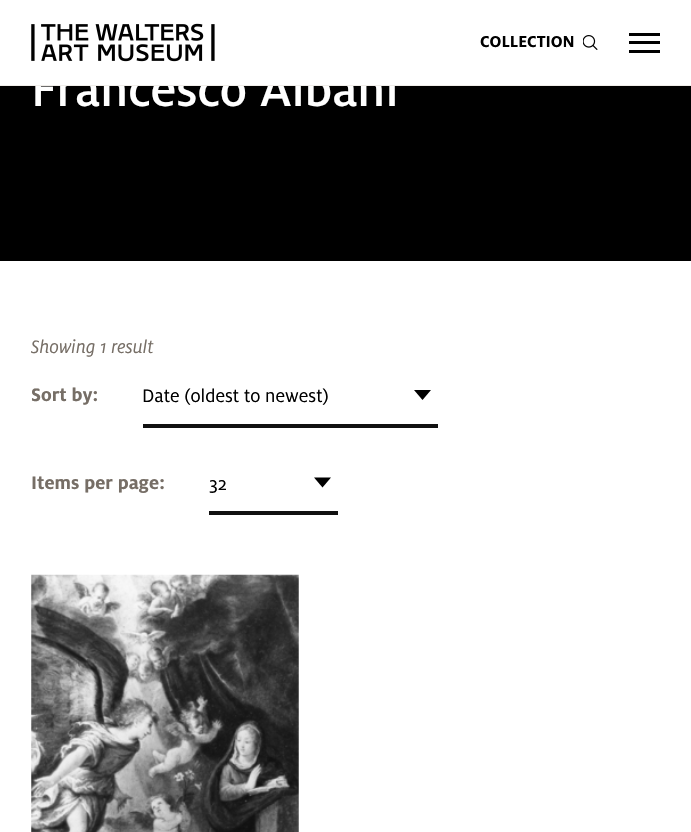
#include "include/core/SkBlurTypes.h"
#include "include/core/SkCanvas.h"
#include "include/core/SkData.h"
#include "include/core/SkFont.h"
#include "include/core/SkFontMgr.h"
#include "include/core/SkImage.h"
#include "include/core/SkMaskFilter.h"
#include "include/core/SkPaint.h"
#include "include/core/SkPathBuilder.h"
#include "include/core/SkTextBlob.h"
#include "include/effects/SkDashPathEffect.h"
#include "include/effects/SkGradientShader.h"
#include "include/utils/SkParsePath.h"

extern sk_sp<SkFontMgr> fontMgr;

void draw(SkCanvas* canvas) {
  SkPaint p;
  p.setAntiAlias(true);
  canvas->clear(SK_ColorWHITE);
  canvas->drawImageRect(SkImages::DeferredFromEncodedData(SkData::MakeFromFileName("images/1.png")), SkRect::MakeLTRB(31, 23, 215, 62), SkSamplingOptions());
  canvas->drawImageRect(SkImages::DeferredFromEncodedData(SkData::MakeFromFileName("images/2.png")), SkRect::MakeLTRB(583, 35, 598, 50), SkSamplingOptions());
  p.setColor(SK_ColorBLACK);
  canvas->drawRect(SkRect::MakeLTRB(629, 33, 660, 36), p);
  canvas->drawRect(SkRect::MakeLTRB(629, 41, 660, 44), p);
  canvas->drawRect(SkRect::MakeLTRB(629, 50, 660, 53), p);
  canvas->drawRect(SkRect::MakeLTRB(0, 86, 691, 261), p);
  p.setColor(SkColorSetRGB(17, 17, 17));
  canvas->drawRect(SkRect::MakeLTRB(143, 424, 438, 428), p);
  p.setColor(SK_ColorBLACK);
  canvas->drawPath(SkPathBuilder().moveTo(414, 390).lineTo(431, 390).lineTo(422.5f, 400).close().detach(), p);
  p.setColor(SkColorSetRGB(17, 17, 17));
  canvas->drawRect(SkRect::MakeLTRB(209, 511, 338, 515), p);
  p.setColor(SK_ColorBLACK);
  canvas->drawPath(SkPathBuilder().moveTo(314, 477.5f).lineTo(331, 477.5f).lineTo(322.5f, 487.5f).close().detach(), p);
  canvas->drawImageRect(SkImages::DeferredFromEncodedData(SkData::MakeFromFileName("images/3.png")), SkRect::MakeLTRB(31, 574, 299, 832), SkSamplingOptions());
  SkFont font1(fontMgr->matchFamilyStyle("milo", SkFontStyle::Bold()), 17.5f);
  font1.setSubpixel(true);
  canvas->drawString("COLLECTION", 480, 47, font1, p);
  SkFont font2(fontMgr->matchFamilyStyle("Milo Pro", SkFontStyle(500, SkFontStyle::kNormal_Width, SkFontStyle::kUpright_Slant)), 52.5f);
  font2.setSubpixel(true);
  p.setColor(SK_ColorWHITE);
  canvas->drawString("Francesco Albani", 31, 106, font2, p);
  p.setColor(SkColorSetRGB(240, 237, 233));
  canvas->drawRect(SkRect::MakeLTRB(0, 85, 691, 86), p);
  SkFont font3(fontMgr->matchFamilyStyle("milo", SkFontStyle::Italic()), 20);
  font3.setSubpixel(true);
  p.setColor(SkColorSetRGB(118, 110, 102));
  canvas->drawString("Showing 1 result", 31, 353, font3, p);
  SkFont font4(fontMgr->matchFamilyStyle("milo", SkFontStyle::Bold()), 20);
  font4.setSubpixel(true);
  canvas->drawString("Sort by:", 31, 401, font4, p);
  SkFont font5(fontMgr->matchFamilyStyle("milo", SkFontStyle::Normal()), 20);
  font5.setSubpixel(true);
  p.setColor(SK_ColorBLACK);
  canvas->drawString("Date (oldest to newest)", 142, 402, font5, p);
  p.setColor(SkColorSetRGB(118, 110, 102));
  canvas->drawString("Items per page:", 31, 489, font4, p);
  p.setColor(SK_ColorBLACK);
  canvas->drawString("32", 209, 490, font5, p);
}
